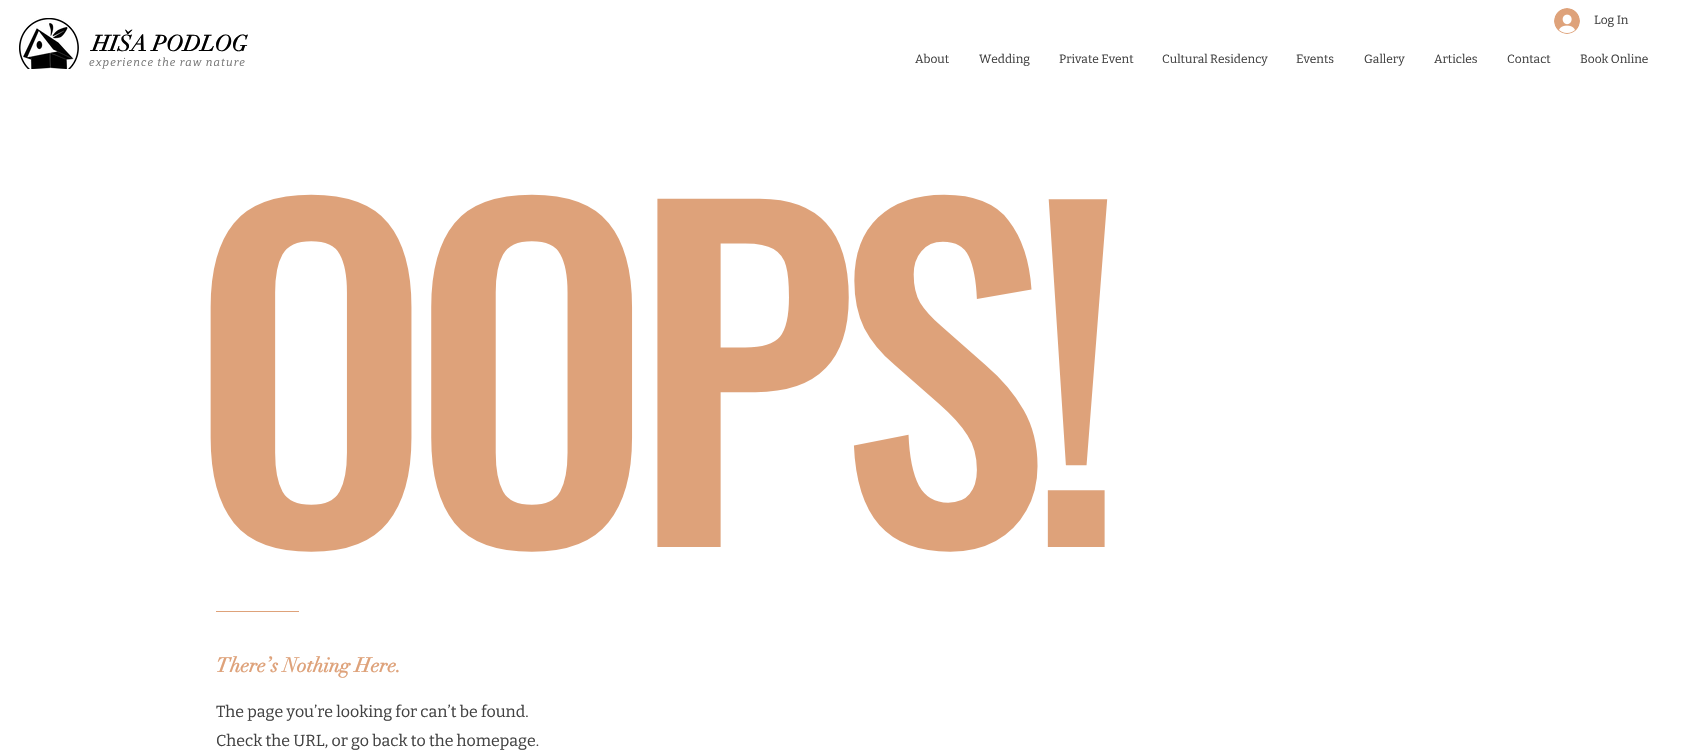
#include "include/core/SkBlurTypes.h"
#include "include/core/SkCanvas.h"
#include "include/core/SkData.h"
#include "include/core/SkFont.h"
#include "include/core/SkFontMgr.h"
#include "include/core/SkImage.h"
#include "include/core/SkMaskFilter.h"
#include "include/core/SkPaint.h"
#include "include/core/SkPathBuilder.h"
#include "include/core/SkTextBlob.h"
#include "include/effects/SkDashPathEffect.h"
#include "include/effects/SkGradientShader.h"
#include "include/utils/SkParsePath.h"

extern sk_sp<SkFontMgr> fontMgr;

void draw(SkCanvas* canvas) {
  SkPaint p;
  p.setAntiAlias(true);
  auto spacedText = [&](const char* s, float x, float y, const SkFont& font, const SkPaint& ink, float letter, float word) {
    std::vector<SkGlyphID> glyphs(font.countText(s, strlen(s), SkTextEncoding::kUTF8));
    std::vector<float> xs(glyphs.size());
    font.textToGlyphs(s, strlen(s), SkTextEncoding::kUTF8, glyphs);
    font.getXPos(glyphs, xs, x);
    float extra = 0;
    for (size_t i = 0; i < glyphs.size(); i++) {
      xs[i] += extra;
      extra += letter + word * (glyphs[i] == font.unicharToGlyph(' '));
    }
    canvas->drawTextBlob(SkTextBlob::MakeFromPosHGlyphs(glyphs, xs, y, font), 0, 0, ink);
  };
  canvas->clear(SK_ColorWHITE);
  canvas->drawImageRect(SkImages::DeferredFromEncodedData(SkData::MakeFromFileName("images/1.png")), SkRect::MakeLTRB(1554, 8, 1580, 34), SkSamplingOptions());
  canvas->drawImageRect(SkImages::DeferredFromEncodedData(SkData::MakeFromFileName("images/2.png")), SkRect::MakeLTRB(19, 18, 79, 69), SkSamplingOptions());
  p.setColor(SkColorSetRGB(222, 162, 122));
  canvas->drawRect(SkRect::MakeLTRB(216, 611, 299, 612), p);
  SkFont font1(fontMgr->matchFamilyStyle("Bitter", SkFontStyle::Normal()), 12);
  font1.setSubpixel(true);
  p.setColor(SkColorSetRGB(65, 65, 65));
  canvas->drawString("Log In", 1594, 24, font1, p);
  SkFont font2(fontMgr->matchFamilyStyle("didot", SkFontStyle::Bold()), 22);
  font2.setSubpixel(true);
  p.setColor(SK_ColorBLACK);
  canvas->drawString("HIŠA PODLOG", 92, 51, font2, p);
  SkFont font3(fontMgr->matchFamilyStyle("Bitter", SkFontStyle(100, SkFontStyle::kNormal_Width, SkFontStyle::kItalic_Slant)), 11);
  font3.setSubpixel(true);
  p.setColor(SkColorSetRGB(117, 117, 117));
  spacedText("experience the raw nature", 89, 66, font3, p, 1.1f, 0);
  p.setColor(SkColorSetRGB(65, 65, 65));
  canvas->drawString("About", 915, 63, font1, p);
  canvas->drawString("Wedding", 979, 63, font1, p);
  canvas->drawString("Private Event", 1059, 63, font1, p);
  canvas->drawString("Cultural Residency", 1162, 63, font1, p);
  canvas->drawString("Events", 1296, 63, font1, p);
  canvas->drawString("Gallery", 1364, 63, font1, p);
  canvas->drawString("Articles", 1434, 63, font1, p);
  canvas->drawString("Contact", 1507, 63, font1, p);
  canvas->drawString("Book Online", 1580, 63, font1, p);
  SkFont font4(fontMgr->matchFamilyStyle("Oswald", SkFontStyle(500, SkFontStyle::kNormal_Width, SkFontStyle::kUpright_Slant)), 430);
  font4.setSubpixel(true);
  p.setColor(SkColorSetRGB(222, 162, 122));
  spacedText("OOPS!", 190, 547, font4, p, -21.5f, 0);
  SkFont font5(fontMgr->matchFamilyStyle("didot", SkFontStyle::Bold()), 20);
  font5.setSubpixel(true);
  canvas->drawString("There’s Nothing Here.", 216, 672, font5, p);
  SkFont font6(fontMgr->matchFamilyStyle("Bitter", SkFontStyle::Normal()), 16);
  font6.setSubpixel(true);
  p.setColor(SkColorSetRGB(65, 65, 65));
  canvas->drawString("The page you’re looking for can’t be found.", 216, 717, font6, p);
  canvas->drawString("Check the URL, or go back to the homepage.", 216, 746, font6, p);
}
